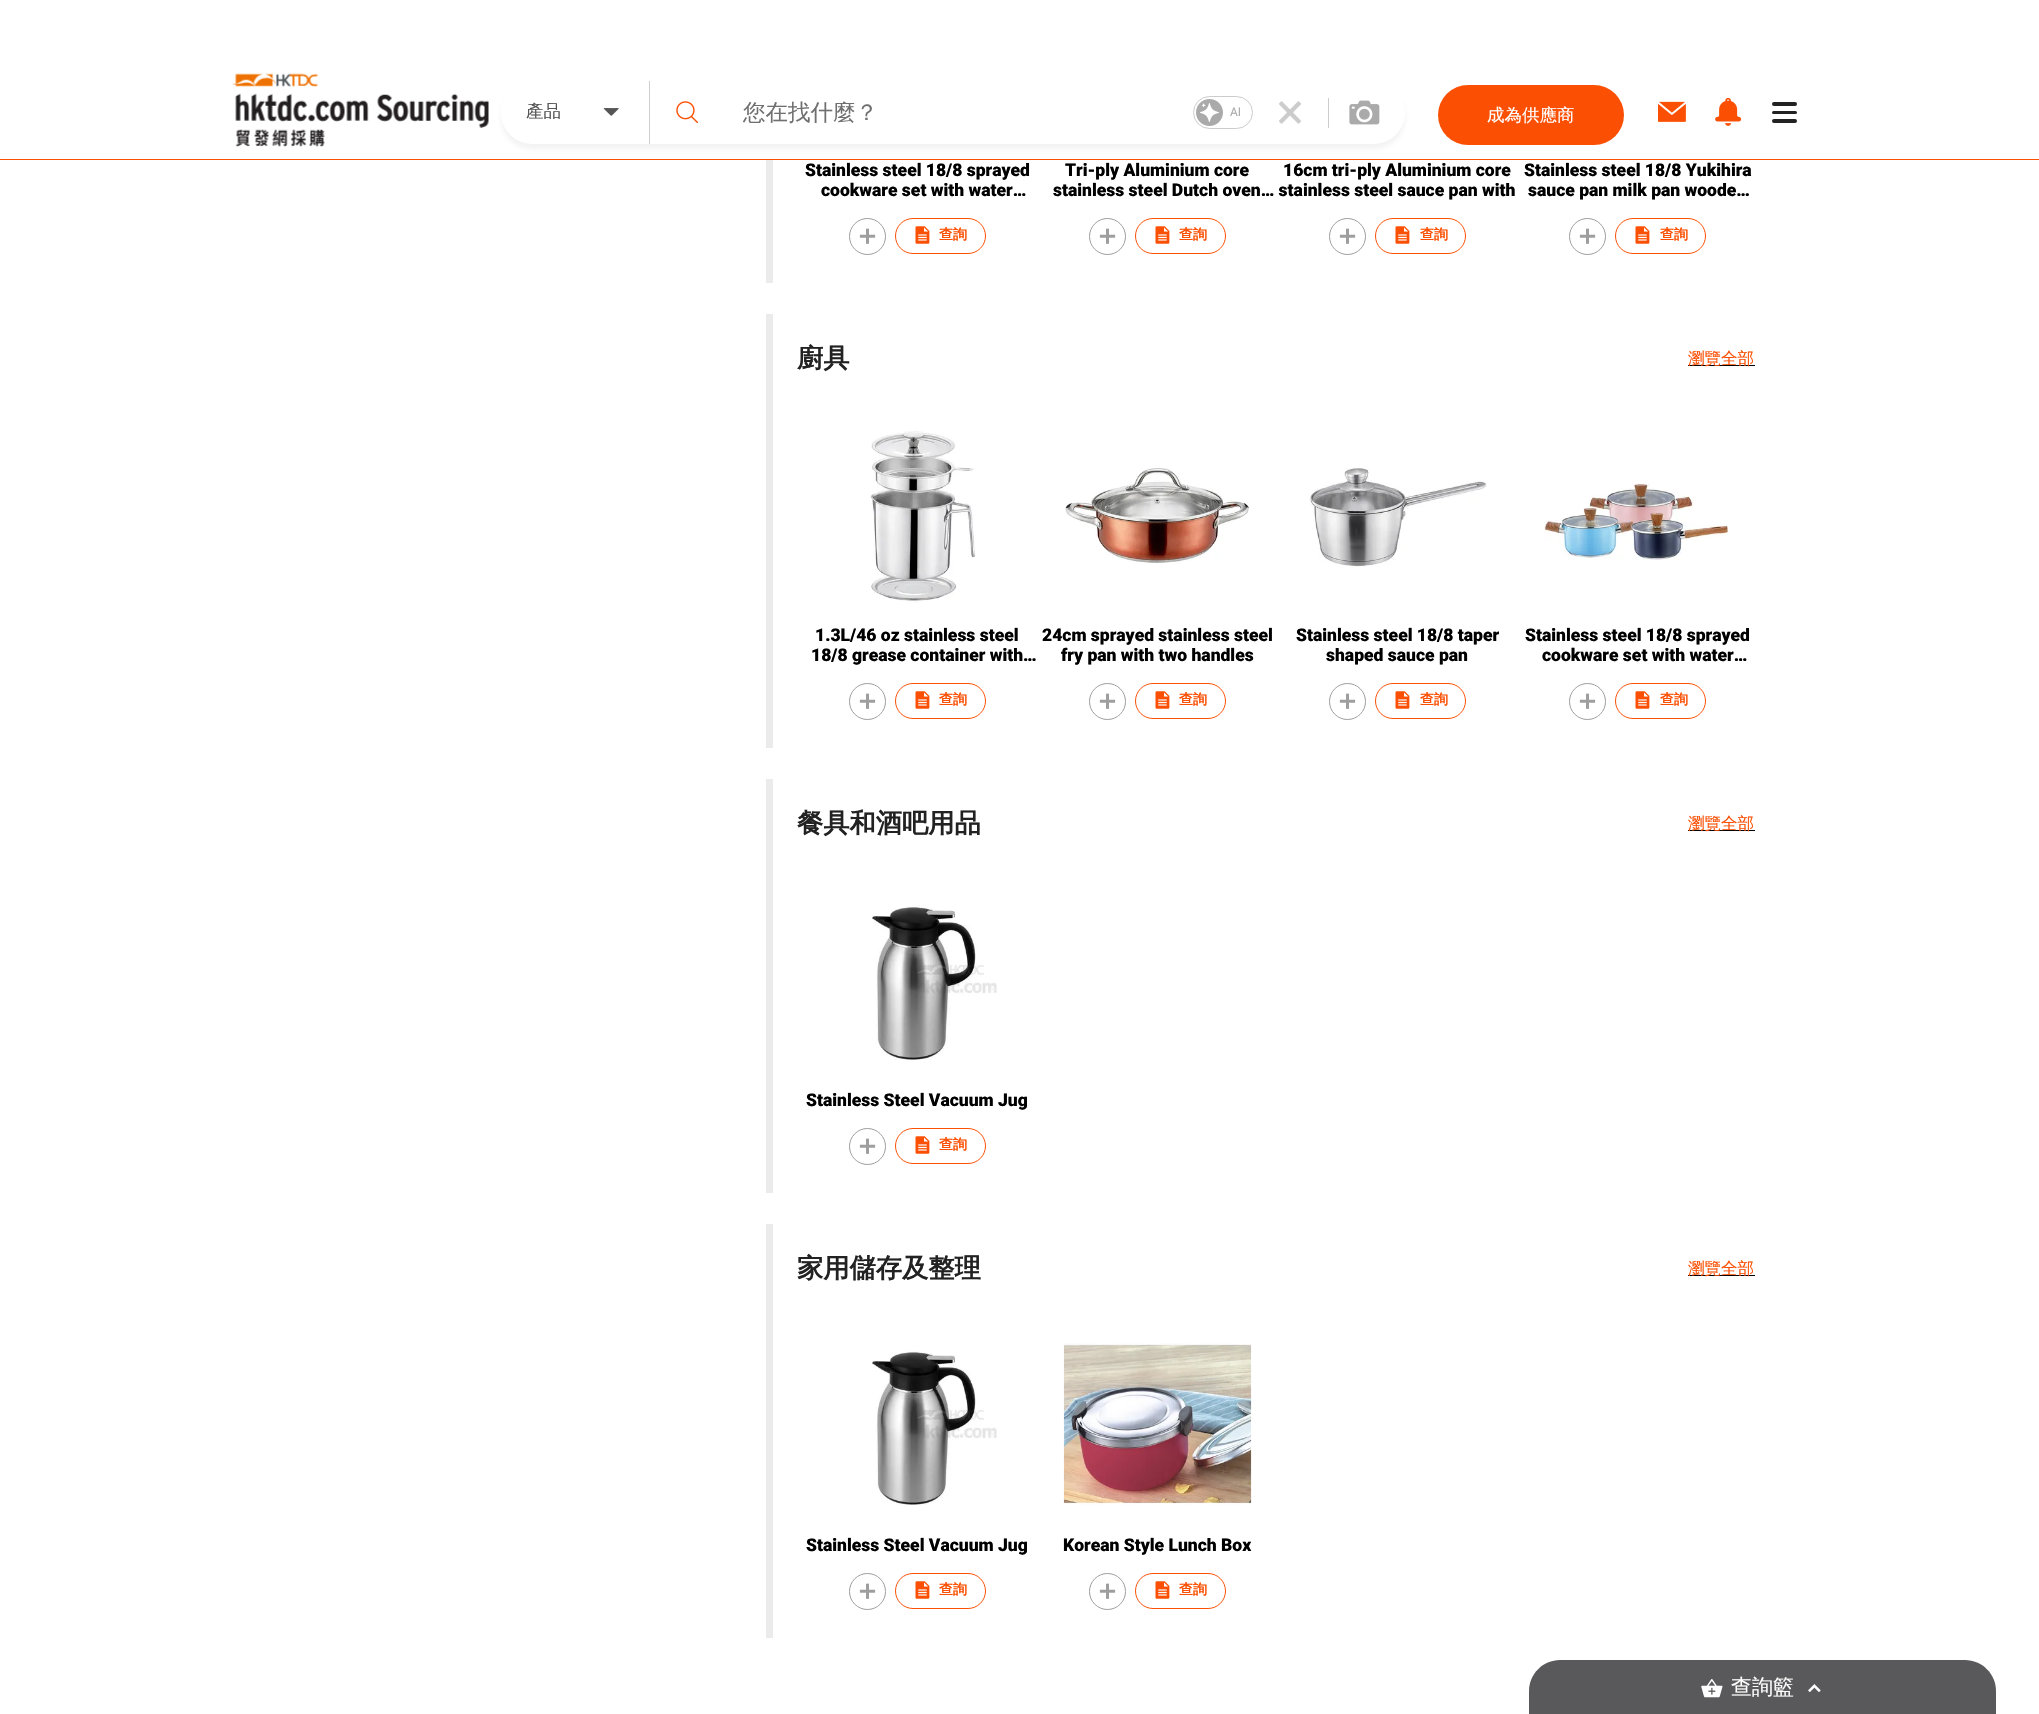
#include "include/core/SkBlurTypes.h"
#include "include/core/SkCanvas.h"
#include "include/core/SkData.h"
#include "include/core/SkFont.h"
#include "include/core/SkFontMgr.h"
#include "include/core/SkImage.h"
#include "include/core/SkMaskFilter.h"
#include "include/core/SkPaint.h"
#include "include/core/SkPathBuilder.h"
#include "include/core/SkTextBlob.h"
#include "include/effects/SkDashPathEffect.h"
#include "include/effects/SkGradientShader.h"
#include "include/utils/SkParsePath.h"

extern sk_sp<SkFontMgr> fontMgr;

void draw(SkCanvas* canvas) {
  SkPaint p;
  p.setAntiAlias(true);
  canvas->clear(SK_ColorWHITE);
  p.setColor(SkColorSetRGB(251, 80, 4));
  canvas->drawRect(SkRect::MakeLTRB(0, 159, 2039, 160), p);
  canvas->drawImageRect(SkImages::DeferredFromEncodedData(SkData::MakeFromFileName("images/1.png")), SkRect::MakeLTRB(232, 73, 489, 147), SkSamplingOptions());
  canvas->save();
  canvas->clipPath(SkPathBuilder(SkPathFillType::kEvenOdd).moveTo(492, 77).lineTo(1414, 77).lineTo(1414, 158).lineTo(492, 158).close().moveTo(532.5f, 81).lineTo(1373.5f, 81).cubicTo(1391, 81, 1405, 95, 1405, 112.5f).cubicTo(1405, 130, 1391, 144, 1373.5f, 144).lineTo(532.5f, 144).cubicTo(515, 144, 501, 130, 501, 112.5f).cubicTo(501, 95, 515, 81, 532.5f, 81).close().detach(), true);
  p.setColor(SkColorSetARGB(26, 127, 127, 127));
  p.setMaskFilter(SkMaskFilter::MakeBlur(kNormal_SkBlurStyle, 2.5f));
  canvas->drawRoundRect(SkRect::MakeLTRB(501, 86, 1405, 149), 31.5f, 31.5f, p);
  p.setMaskFilter(nullptr);
  canvas->restore();
  p.setColor(SkColorSetRGB(207, 207, 207));
  canvas->drawRect(SkRect::MakeLTRB(649, 81, 650, 144), p);
  canvas->drawImageRect(SkImages::DeferredFromEncodedData(SkData::MakeFromFileName("images/2.png")), SkRect::MakeLTRB(603, 108, 619, 116), SkSamplingOptions());
  canvas->drawImageRect(SkImages::DeferredFromEncodedData(SkData::MakeFromFileName("images/3.png")), SkRect::MakeLTRB(676, 101, 699, 123), SkSamplingOptions());
  p.setStyle(SkPaint::kStroke_Style);
  p.setStrokeWidth(1);
  p.setColor(SkColorSetRGB(204, 204, 204));
  canvas->drawRoundRect(SkRect::MakeLTRB(1193.5f, 96.5f, 1252.5f, 128.5f), 16, 16, p);
  canvas->drawImageRect(SkImages::DeferredFromEncodedData(SkData::MakeFromFileName("images/4.png")), SkRect::MakeLTRB(1196, 99, 1223, 126), SkSamplingOptions());
  canvas->drawImageRect(SkImages::DeferredFromEncodedData(SkData::MakeFromFileName("images/5.png")), SkRect::MakeLTRB(1279, 101, 1301, 124), SkSamplingOptions());
  p.setStyle(SkPaint::kFill_Style);
  canvas->drawRect(SkRect::MakeLTRB(1328, 98, 1329, 128), p);
  canvas->drawImageRect(SkImages::DeferredFromEncodedData(SkData::MakeFromFileName("images/6.png")), SkRect::MakeLTRB(1349, 100, 1380, 125), SkSamplingOptions());
  p.setColor(SkColorSetRGB(251, 80, 4));
  canvas->drawRoundRect(SkRect::MakeLTRB(1438, 85, 1624, 145), 30, 30, p);
  canvas->drawImageRect(SkImages::DeferredFromEncodedData(SkData::MakeFromFileName("images/7.png")), SkRect::MakeLTRB(1658, 101, 1686, 122), SkSamplingOptions());
  canvas->drawImageRect(SkImages::DeferredFromEncodedData(SkData::MakeFromFileName("images/8.png")), SkRect::MakeLTRB(1715, 98, 1742, 126), SkSamplingOptions());
  p.setColor(SkColorSetRGB(34, 34, 34));
  canvas->drawRoundRect(SkRect::MakeLTRB(1772, 102, 1797, 106), 2, 2, p);
  canvas->drawRoundRect(SkRect::MakeLTRB(1772, 111, 1797, 114), 1.5f, 1.5f, p);
  canvas->drawRoundRect(SkRect::MakeLTRB(1772, 119, 1797, 123), 2, 2, p);
  p.setColor(SkColorSetRGB(235, 235, 235));
  canvas->drawRect(SkRect::MakeLTRB(766, 160, 773, 283), p);
  p.setStyle(SkPaint::kStroke_Style);
  p.setColor(SkColorSetRGB(158, 158, 158));
  canvas->drawCircle(867.5f, 236.5f, 18, p);
  canvas->drawImageRect(SkImages::DeferredFromEncodedData(SkData::MakeFromFileName("images/9.png")), SkRect::MakeLTRB(859, 228, 876, 244), SkSamplingOptions());
  p.setColor(SkColorSetRGB(251, 80, 4));
  canvas->drawRoundRect(SkRect::MakeLTRB(895.5f, 218.5f, 985.5f, 253.5f), 17.5f, 17.5f, p);
  canvas->drawImageRect(SkImages::DeferredFromEncodedData(SkData::MakeFromFileName("images/10.png")), SkRect::MakeLTRB(915, 226, 930, 244), SkSamplingOptions());
  p.setColor(SkColorSetRGB(158, 158, 158));
  canvas->drawCircle(1107.5f, 236.5f, 18, p);
  canvas->drawImageRect(SkImages::DeferredFromEncodedData(SkData::MakeFromFileName("images/9.png")), SkRect::MakeLTRB(1099, 228, 1116, 244), SkSamplingOptions());
  p.setColor(SkColorSetRGB(251, 80, 4));
  canvas->drawRoundRect(SkRect::MakeLTRB(1135.5f, 218.5f, 1225.5f, 253.5f), 17.5f, 17.5f, p);
  canvas->drawImageRect(SkImages::DeferredFromEncodedData(SkData::MakeFromFileName("images/10.png")), SkRect::MakeLTRB(1155, 226, 1170, 244), SkSamplingOptions());
  p.setColor(SkColorSetRGB(158, 158, 158));
  canvas->drawCircle(1347.5f, 236.5f, 18, p);
  canvas->drawImageRect(SkImages::DeferredFromEncodedData(SkData::MakeFromFileName("images/9.png")), SkRect::MakeLTRB(1339, 228, 1356, 244), SkSamplingOptions());
  p.setColor(SkColorSetRGB(251, 80, 4));
  canvas->drawRoundRect(SkRect::MakeLTRB(1375.5f, 218.5f, 1465.5f, 253.5f), 17.5f, 17.5f, p);
  canvas->drawImageRect(SkImages::DeferredFromEncodedData(SkData::MakeFromFileName("images/10.png")), SkRect::MakeLTRB(1395, 226, 1410, 244), SkSamplingOptions());
  p.setColor(SkColorSetRGB(158, 158, 158));
  canvas->drawCircle(1587.5f, 236.5f, 18, p);
  canvas->drawImageRect(SkImages::DeferredFromEncodedData(SkData::MakeFromFileName("images/9.png")), SkRect::MakeLTRB(1579, 228, 1596, 244), SkSamplingOptions());
  p.setColor(SkColorSetRGB(251, 80, 4));
  canvas->drawRoundRect(SkRect::MakeLTRB(1615.5f, 218.5f, 1705.5f, 253.5f), 17.5f, 17.5f, p);
  canvas->drawImageRect(SkImages::DeferredFromEncodedData(SkData::MakeFromFileName("images/10.png")), SkRect::MakeLTRB(1635, 226, 1650, 244), SkSamplingOptions());
  p.setStyle(SkPaint::kFill_Style);
  p.setColor(SkColorSetRGB(235, 235, 235));
  canvas->drawRect(SkRect::MakeLTRB(766, 314, 773, 748), p);
  p.setColor(SK_ColorBLACK);
  canvas->drawRect(SkRect::MakeLTRB(1688, 365, 1755, 366), p);
  canvas->drawImageRect(SkImages::DeferredFromEncodedData(SkData::MakeFromFileName("images/11.png")), SkRect::MakeLTRB(870, 431, 976, 603), SkSamplingOptions());
  p.setStyle(SkPaint::kStroke_Style);
  p.setColor(SkColorSetRGB(158, 158, 158));
  canvas->drawCircle(867.5f, 701.5f, 18, p);
  canvas->drawImageRect(SkImages::DeferredFromEncodedData(SkData::MakeFromFileName("images/9.png")), SkRect::MakeLTRB(859, 693, 876, 709), SkSamplingOptions());
  p.setColor(SkColorSetRGB(251, 80, 4));
  canvas->drawRoundRect(SkRect::MakeLTRB(895.5f, 683.5f, 985.5f, 718.5f), 17.5f, 17.5f, p);
  canvas->drawImageRect(SkImages::DeferredFromEncodedData(SkData::MakeFromFileName("images/10.png")), SkRect::MakeLTRB(915, 691, 930, 709), SkSamplingOptions());
  canvas->drawImageRect(SkImages::DeferredFromEncodedData(SkData::MakeFromFileName("images/12.png")), SkRect::MakeLTRB(1065, 468, 1249, 563), SkSamplingOptions());
  p.setColor(SkColorSetRGB(158, 158, 158));
  canvas->drawCircle(1107.5f, 701.5f, 18, p);
  canvas->drawImageRect(SkImages::DeferredFromEncodedData(SkData::MakeFromFileName("images/9.png")), SkRect::MakeLTRB(1099, 693, 1116, 709), SkSamplingOptions());
  p.setColor(SkColorSetRGB(251, 80, 4));
  canvas->drawRoundRect(SkRect::MakeLTRB(1135.5f, 683.5f, 1225.5f, 718.5f), 17.5f, 17.5f, p);
  canvas->drawImageRect(SkImages::DeferredFromEncodedData(SkData::MakeFromFileName("images/10.png")), SkRect::MakeLTRB(1155, 691, 1170, 709), SkSamplingOptions());
  canvas->drawImageRect(SkImages::DeferredFromEncodedData(SkData::MakeFromFileName("images/13.png")), SkRect::MakeLTRB(1309, 468, 1487, 568), SkSamplingOptions());
  p.setColor(SkColorSetRGB(158, 158, 158));
  canvas->drawCircle(1347.5f, 701.5f, 18, p);
  canvas->drawImageRect(SkImages::DeferredFromEncodedData(SkData::MakeFromFileName("images/9.png")), SkRect::MakeLTRB(1339, 693, 1356, 709), SkSamplingOptions());
  p.setColor(SkColorSetRGB(251, 80, 4));
  canvas->drawRoundRect(SkRect::MakeLTRB(1375.5f, 683.5f, 1465.5f, 718.5f), 17.5f, 17.5f, p);
  canvas->drawImageRect(SkImages::DeferredFromEncodedData(SkData::MakeFromFileName("images/10.png")), SkRect::MakeLTRB(1395, 691, 1410, 709), SkSamplingOptions());
  canvas->drawImageRect(SkImages::DeferredFromEncodedData(SkData::MakeFromFileName("images/14.png")), SkRect::MakeLTRB(1544, 483, 1729, 560), SkSamplingOptions());
  p.setColor(SkColorSetRGB(158, 158, 158));
  canvas->drawCircle(1587.5f, 701.5f, 18, p);
  canvas->drawImageRect(SkImages::DeferredFromEncodedData(SkData::MakeFromFileName("images/9.png")), SkRect::MakeLTRB(1579, 693, 1596, 709), SkSamplingOptions());
  p.setColor(SkColorSetRGB(251, 80, 4));
  canvas->drawRoundRect(SkRect::MakeLTRB(1615.5f, 683.5f, 1705.5f, 718.5f), 17.5f, 17.5f, p);
  canvas->drawImageRect(SkImages::DeferredFromEncodedData(SkData::MakeFromFileName("images/10.png")), SkRect::MakeLTRB(1635, 691, 1650, 709), SkSamplingOptions());
  p.setStyle(SkPaint::kFill_Style);
  p.setColor(SkColorSetRGB(235, 235, 235));
  canvas->drawRect(SkRect::MakeLTRB(766, 779, 773, 1193), p);
  p.setColor(SK_ColorBLACK);
  canvas->drawRect(SkRect::MakeLTRB(1688, 830, 1755, 831), p);
  canvas->drawImageRect(SkImages::DeferredFromEncodedData(SkData::MakeFromFileName("images/15.png")), SkRect::MakeLTRB(871, 905, 997, 1060), SkSamplingOptions());
  p.setStyle(SkPaint::kStroke_Style);
  p.setColor(SkColorSetRGB(158, 158, 158));
  canvas->drawCircle(867.5f, 1146.5f, 18, p);
  canvas->drawImageRect(SkImages::DeferredFromEncodedData(SkData::MakeFromFileName("images/9.png")), SkRect::MakeLTRB(859, 1138, 876, 1154), SkSamplingOptions());
  p.setColor(SkColorSetRGB(251, 80, 4));
  canvas->drawRoundRect(SkRect::MakeLTRB(895.5f, 1128.5f, 985.5f, 1163.5f), 17.5f, 17.5f, p);
  canvas->drawImageRect(SkImages::DeferredFromEncodedData(SkData::MakeFromFileName("images/10.png")), SkRect::MakeLTRB(915, 1136, 930, 1154), SkSamplingOptions());
  p.setStyle(SkPaint::kFill_Style);
  p.setColor(SkColorSetRGB(235, 235, 235));
  canvas->drawRect(SkRect::MakeLTRB(766, 1224, 773, 1638), p);
  p.setColor(SK_ColorBLACK);
  canvas->drawRect(SkRect::MakeLTRB(1688, 1275, 1755, 1276), p);
  canvas->drawImageRect(SkImages::DeferredFromEncodedData(SkData::MakeFromFileName("images/15.png")), SkRect::MakeLTRB(871, 1350, 997, 1505), SkSamplingOptions());
  p.setStyle(SkPaint::kStroke_Style);
  p.setColor(SkColorSetRGB(158, 158, 158));
  canvas->drawCircle(867.5f, 1591.5f, 18, p);
  canvas->drawImageRect(SkImages::DeferredFromEncodedData(SkData::MakeFromFileName("images/9.png")), SkRect::MakeLTRB(859, 1583, 876, 1599), SkSamplingOptions());
  p.setColor(SkColorSetRGB(251, 80, 4));
  canvas->drawRoundRect(SkRect::MakeLTRB(895.5f, 1573.5f, 985.5f, 1608.5f), 17.5f, 17.5f, p);
  canvas->drawImageRect(SkImages::DeferredFromEncodedData(SkData::MakeFromFileName("images/10.png")), SkRect::MakeLTRB(915, 1581, 930, 1599), SkSamplingOptions());
  canvas->drawImageRect(SkImages::DeferredFromEncodedData(SkData::MakeFromFileName("images/16.png")), SkRect::MakeLTRB(1063, 1343, 1252, 1505), SkSamplingOptions());
  p.setColor(SkColorSetRGB(158, 158, 158));
  canvas->drawCircle(1107.5f, 1591.5f, 18, p);
  canvas->drawImageRect(SkImages::DeferredFromEncodedData(SkData::MakeFromFileName("images/9.png")), SkRect::MakeLTRB(1099, 1583, 1116, 1599), SkSamplingOptions());
  p.setColor(SkColorSetRGB(251, 80, 4));
  canvas->drawRoundRect(SkRect::MakeLTRB(1135.5f, 1573.5f, 1225.5f, 1608.5f), 17.5f, 17.5f, p);
  canvas->drawImageRect(SkImages::DeferredFromEncodedData(SkData::MakeFromFileName("images/10.png")), SkRect::MakeLTRB(1155, 1581, 1170, 1599), SkSamplingOptions());
  p.setStyle(SkPaint::kFill_Style);
  p.setColor(SkColorSetRGB(89, 89, 91));
  canvas->drawPath(SkPathBuilder().moveTo(1560, 1660).lineTo(1965, 1660).cubicTo(1982, 1660, 1996, 1674, 1996, 1691).lineTo(1996, 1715).lineTo(1529, 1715).lineTo(1529, 1691).cubicTo(1529, 1674, 1543, 1660, 1560, 1660).close().detach(), p);
  canvas->drawImageRect(SkImages::DeferredFromEncodedData(SkData::MakeFromFileName("images/17.png")), SkRect::MakeLTRB(1701, 1679, 1723, 1698), SkSamplingOptions());
  canvas->drawImageRect(SkImages::DeferredFromEncodedData(SkData::MakeFromFileName("images/18.png")), SkRect::MakeLTRB(1808, 1684, 1821, 1693), SkSamplingOptions());
  SkFont font1(fontMgr->matchFamilyStyle("WenQuanYi Zen Hei", SkFontStyle(500, SkFontStyle::kNormal_Width, SkFontStyle::kUpright_Slant)), 17.5f);
  font1.setSubpixel(true);
  p.setColor(SkColorSetRGB(85, 85, 85));
  canvas->drawString("產品", 526, 117, font1, p);
  SkFont font2(fontMgr->matchFamilyStyle("WenQuanYi Zen Hei", SkFontStyle(500, SkFontStyle::kNormal_Width, SkFontStyle::kUpright_Slant)), 22.5f);
  font2.setSubpixel(true);
  p.setColor(SkColorSetRGB(112, 112, 112));
  canvas->drawString("您在找什麼？", 743, 120, font2, p);
  SkFont font3(fontMgr->matchFamilyStyle("Roboto", SkFontStyle::Normal()), 12);
  font3.setSubpixel(true);
  p.setColor(SkColorSetRGB(170, 170, 170));
  canvas->drawString("AI", 1230, 116, font3, p);
  p.setColor(SK_ColorWHITE);
  canvas->drawString("成為供應商", 1487, 121, font1, p);
  SkFont font4(fontMgr->matchFamilyStyle("Roboto", SkFontStyle(900, SkFontStyle::kNormal_Width, SkFontStyle::kUpright_Slant)), 17.5f);
  font4.setSubpixel(true);
  p.setColor(SK_ColorBLACK);
  canvas->drawString("Stainless steel 18/8 sprayed", 805, 176, font4, p);
  canvas->drawString("cookware set with water…", 821, 196, font4, p);
  SkFont font5(fontMgr->matchFamilyStyle("WenQuanYi Zen Hei", SkFontStyle::Bold()), 14);
  font5.setSubpixel(true);
  p.setColor(SkColorSetRGB(251, 80, 4));
  canvas->drawString("查詢", 939, 239, font5, p);
  p.setColor(SK_ColorBLACK);
  canvas->drawString("Tri-ply Aluminium core", 1065, 176, font4, p);
  canvas->drawString("stainless steel Dutch oven… stainless steel sauce pan with", 1053, 196, font4, p);
  p.setColor(SkColorSetRGB(251, 80, 4));
  canvas->drawString("查詢", 1179, 239, font5, p);
  p.setColor(SK_ColorBLACK);
  canvas->drawString("16cm tri-ply Aluminium core", 1283, 176, font4, p);
  p.setColor(SkColorSetRGB(251, 80, 4));
  canvas->drawString("查詢", 1420, 239, font5, p);
  p.setColor(SK_ColorBLACK);
  canvas->drawString("Stainless steel 18/8 Yukihira", 1524, 176, font4, p);
  canvas->drawString("sauce pan milk pan woode…", 1528, 196, font4, p);
  p.setColor(SkColorSetRGB(251, 80, 4));
  canvas->drawString("查詢", 1660, 239, font5, p);
  SkFont font6(fontMgr->matchFamilyStyle("WenQuanYi Zen Hei", SkFontStyle::Bold()), 26.25f);
  font6.setSubpixel(true);
  p.setColor(SkColorSetRGB(34, 34, 34));
  canvas->drawString("廚具", 797, 367, font6, p);
  SkFont font7(fontMgr->matchFamilyStyle("WenQuanYi Zen Hei", SkFontStyle(500, SkFontStyle::kNormal_Width, SkFontStyle::kUpright_Slant)), 16.5f);
  font7.setSubpixel(true);
  p.setColor(SkColorSetRGB(251, 80, 4));
  canvas->drawString("瀏覽全部", 1688, 364, font7, p);
  p.setColor(SK_ColorBLACK);
  canvas->drawString("1.3L/46 oz stainless steel", 815, 641, font4, p);
  canvas->drawString("18/8 grease container with…", 811, 661, font4, p);
  p.setColor(SkColorSetRGB(251, 80, 4));
  canvas->drawString("查詢", 939, 704, font5, p);
  p.setColor(SK_ColorBLACK);
  canvas->drawString("24cm sprayed stainless steel", 1042, 641, font4, p);
  canvas->drawString("fry pan with two handles", 1061, 661, font4, p);
  p.setColor(SkColorSetRGB(251, 80, 4));
  canvas->drawString("查詢", 1179, 704, font5, p);
  p.setColor(SK_ColorBLACK);
  canvas->drawString("Stainless steel 18/8 taper", 1296, 641, font4, p);
  canvas->drawString("shaped sauce pan", 1326, 661, font4, p);
  p.setColor(SkColorSetRGB(251, 80, 4));
  canvas->drawString("查詢", 1420, 704, font5, p);
  p.setColor(SK_ColorBLACK);
  canvas->drawString("Stainless steel 18/8 sprayed", 1525, 641, font4, p);
  canvas->drawString("cookware set with water…", 1542, 661, font4, p);
  p.setColor(SkColorSetRGB(251, 80, 4));
  canvas->drawString("查詢", 1660, 704, font5, p);
  p.setColor(SkColorSetRGB(34, 34, 34));
  canvas->drawString("餐具和酒吧用品", 797, 832, font6, p);
  p.setColor(SkColorSetRGB(251, 80, 4));
  canvas->drawString("瀏覽全部", 1688, 829, font7, p);
  p.setColor(SK_ColorBLACK);
  canvas->drawString("Stainless Steel Vacuum Jug", 806, 1106, font4, p);
  p.setColor(SkColorSetRGB(251, 80, 4));
  canvas->drawString("查詢", 939, 1149, font5, p);
  p.setColor(SkColorSetRGB(34, 34, 34));
  canvas->drawString("家用儲存及整理", 797, 1277, font6, p);
  p.setColor(SkColorSetRGB(251, 80, 4));
  canvas->drawString("瀏覽全部", 1688, 1274, font7, p);
  p.setColor(SK_ColorBLACK);
  canvas->drawString("Stainless Steel Vacuum Jug", 806, 1551, font4, p);
  p.setColor(SkColorSetRGB(251, 80, 4));
  canvas->drawString("查詢", 939, 1594, font5, p);
  p.setColor(SK_ColorBLACK);
  canvas->drawString("Korean Style Lunch Box", 1063, 1551, font4, p);
  p.setColor(SkColorSetRGB(251, 80, 4));
  canvas->drawString("查詢", 1179, 1594, font5, p);
  SkFont font8(fontMgr->matchFamilyStyle("WenQuanYi Zen Hei", SkFontStyle(500, SkFontStyle::kNormal_Width, SkFontStyle::kUpright_Slant)), 21);
  font8.setSubpixel(true);
  p.setColor(SK_ColorWHITE);
  canvas->drawString("查詢籃", 1731, 1694, font8, p);
}
